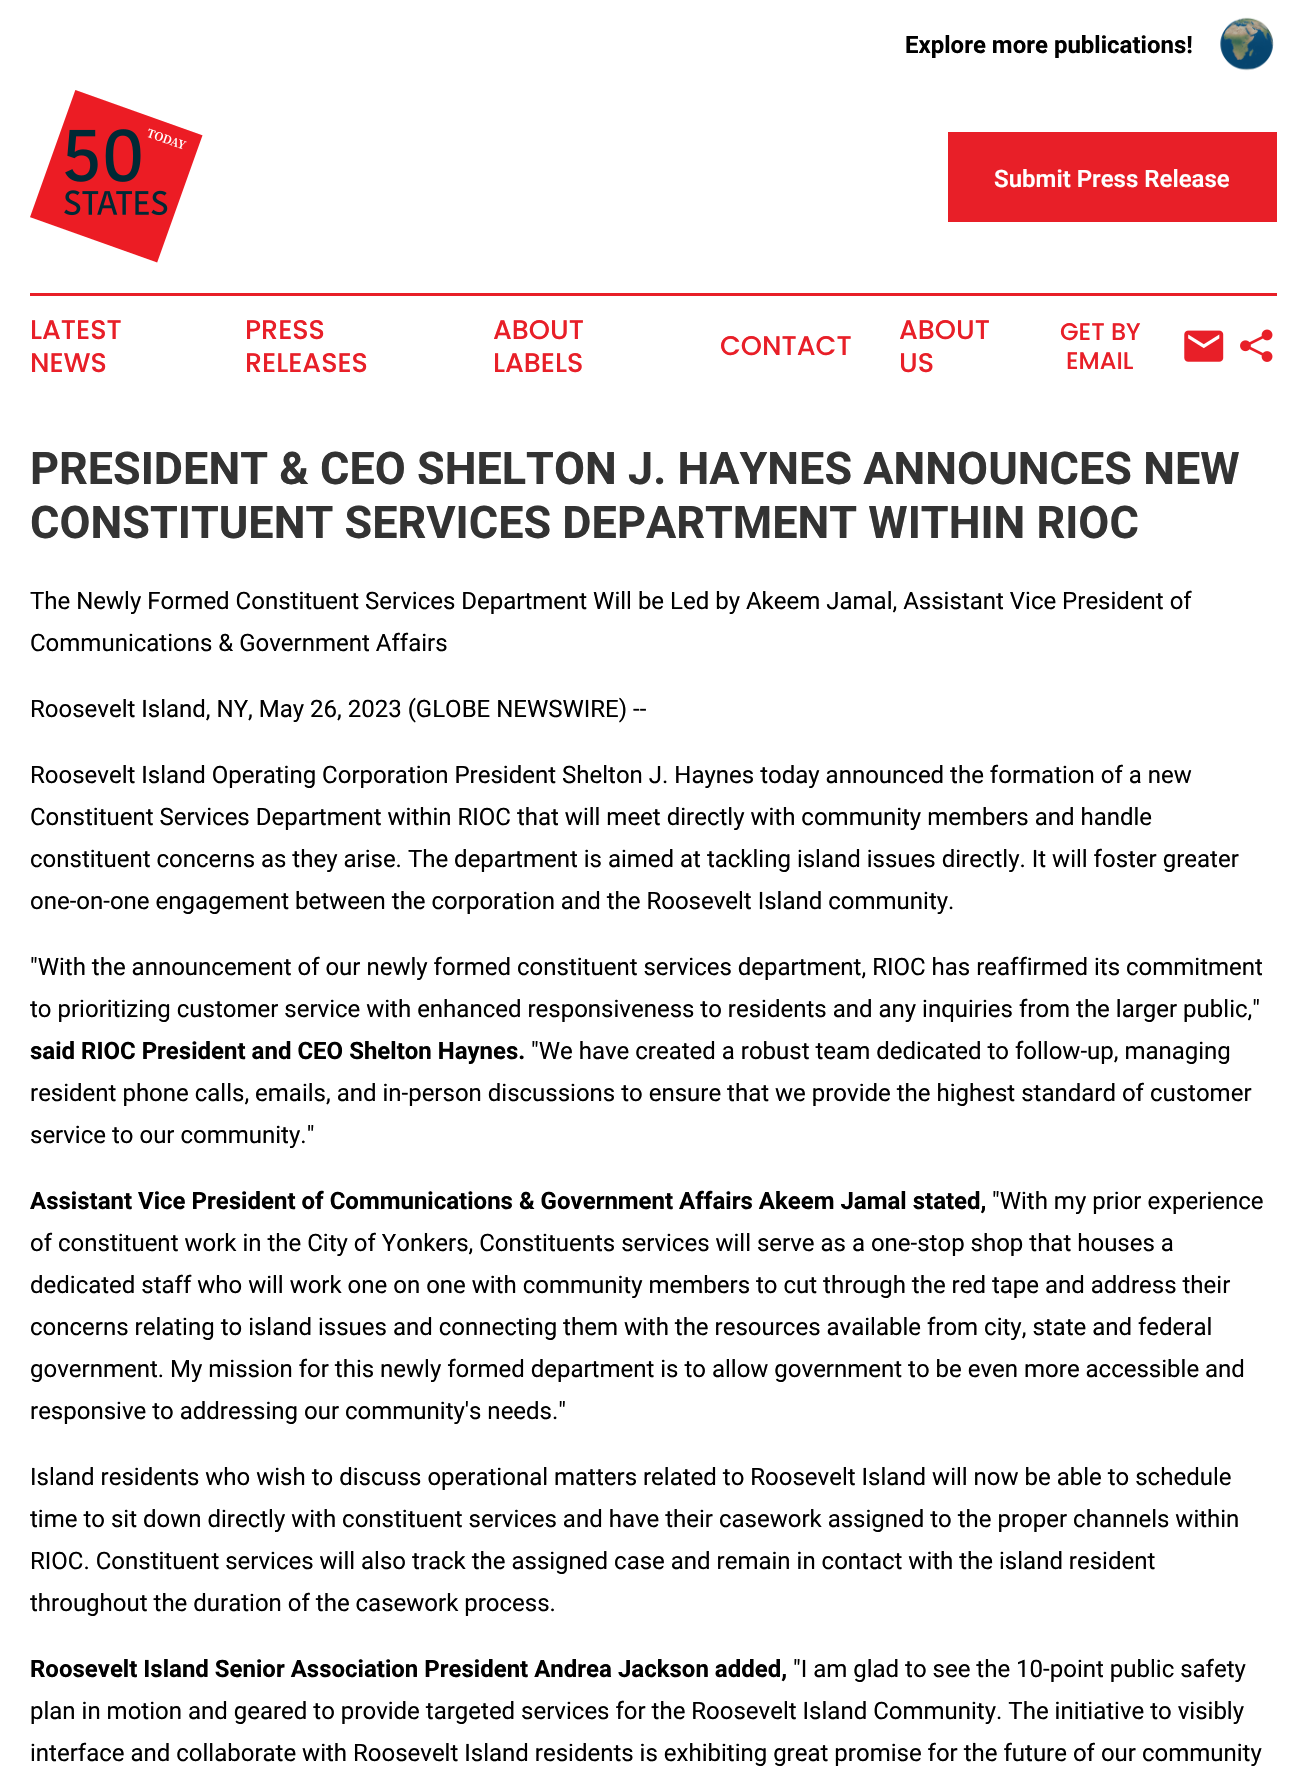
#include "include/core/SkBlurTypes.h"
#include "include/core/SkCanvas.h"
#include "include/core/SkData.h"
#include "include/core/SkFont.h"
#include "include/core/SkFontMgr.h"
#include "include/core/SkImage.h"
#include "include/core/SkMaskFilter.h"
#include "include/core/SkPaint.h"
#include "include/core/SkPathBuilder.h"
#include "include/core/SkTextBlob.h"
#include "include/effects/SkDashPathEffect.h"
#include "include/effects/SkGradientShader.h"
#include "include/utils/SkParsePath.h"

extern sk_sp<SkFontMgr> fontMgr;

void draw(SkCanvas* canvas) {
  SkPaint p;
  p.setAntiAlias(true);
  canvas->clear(SK_ColorWHITE);
  canvas->drawImageRect(SkImages::DeferredFromEncodedData(SkData::MakeFromFileName("images/1.png")), SkRect::MakeLTRB(1220, 17, 1274, 71), SkSamplingOptions());
  canvas->drawImageRect(SkImages::DeferredFromEncodedData(SkData::MakeFromFileName("images/2.png")), SkRect::MakeLTRB(30, 90, 203, 263), SkSamplingOptions());
  p.setColor(SkColorSetRGB(232, 31, 40));
  canvas->drawRect(SkRect::MakeLTRB(948, 132, 1277, 222), p);
  canvas->drawRect(SkRect::MakeLTRB(30, 293, 1277, 296), p);
  canvas->drawImageRect(SkImages::DeferredFromEncodedData(SkData::MakeFromFileName("images/3.png")), SkRect::MakeLTRB(1184, 330, 1224, 362), SkSamplingOptions());
  canvas->drawImageRect(SkImages::DeferredFromEncodedData(SkData::MakeFromFileName("images/4.png")), SkRect::MakeLTRB(1240, 329, 1273, 362), SkSamplingOptions());
  SkFont font1(fontMgr->matchFamilyStyle("Roboto", SkFontStyle::Bold()), 24);
  font1.setSubpixel(true);
  p.setColor(SK_ColorBLACK);
  canvas->drawString("Explore more publications!", 905, 53, font1, p);
  SkFont font2(fontMgr->matchFamilyStyle("Roboto", SkFontStyle(600, SkFontStyle::kNormal_Width, SkFontStyle::kUpright_Slant)), 24);
  font2.setSubpixel(true);
  p.setColor(SK_ColorWHITE);
  canvas->drawString("Submit Press Release", 994, 187, font2, p);
  SkFont font3(fontMgr->matchFamilyStyle("Poppins", SkFontStyle(500, SkFontStyle::kNormal_Width, SkFontStyle::kUpright_Slant)), 27);
  font3.setSubpixel(true);
  p.setColor(SkColorSetRGB(232, 31, 40));
  canvas->drawString("LATEST", 30, 339, font3, p);
  canvas->drawString("NEWS", 30, 372, font3, p);
  canvas->drawString("PRESS", 245, 339, font3, p);
  canvas->drawString("RELEASES", 245, 372, font3, p);
  canvas->drawString("ABOUT", 493, 339, font3, p);
  canvas->drawString("LABELS", 493, 372, font3, p);
  canvas->drawString("CONTACT", 720, 355, font3, p);
  canvas->drawString("ABOUT", 899, 339, font3, p);
  canvas->drawString("US", 899, 372, font3, p);
  SkFont font4(fontMgr->matchFamilyStyle("Poppins", SkFontStyle(500, SkFontStyle::kNormal_Width, SkFontStyle::kUpright_Slant)), 24);
  font4.setSubpixel(true);
  canvas->drawString("GET BY", 1060, 340, font4, p);
  canvas->drawString("EMAIL", 1066, 369, font4, p);
  SkFont font5(fontMgr->matchFamilyStyle("Roboto", SkFontStyle::Bold()), 45);
  font5.setSubpixel(true);
  p.setColor(SkColorSetRGB(51, 51, 51));
  canvas->drawString("PRESIDENT & CEO SHELTON J. HAYNES ANNOUNCES NEW", 30, 484, font5, p);
  canvas->drawString("CONSTITUENT SERVICES DEPARTMENT WITHIN RIOC", 30, 538, font5, p);
  SkFont font6(fontMgr->matchFamilyStyle("Roboto", SkFontStyle::Normal()), 24);
  font6.setSubpixel(true);
  p.setColor(SK_ColorBLACK);
  canvas->drawString("The Newly Formed Constituent Services Department Will be Led by Akeem Jamal, Assistant Vice President of", 30, 609, font6, p);
  canvas->drawString("Communications & Government Affairs", 30, 651, font6, p);
  canvas->drawString("Roosevelt Island, NY, May 26, 2023 (GLOBE NEWSWIRE) --", 30, 717, font6, p);
  canvas->drawString("Roosevelt Island Operating Corporation President Shelton J. Haynes today announced the formation of a new", 30, 783, font6, p);
  canvas->drawString("Constituent Services Department within RIOC that will meet directly with community members and handle", 30, 825, font6, p);
  canvas->drawString("constituent concerns as they arise. The department is aimed at tackling island issues directly. It will foster greater", 30, 867, font6, p);
  canvas->drawString("one-on-one engagement between the corporation and the Roosevelt Island community.", 30, 909, font6, p);
  canvas->drawString("\"With the announcement of our newly formed constituent services department, RIOC has reaffirmed its commitment", 30, 975, font6, p);
  canvas->drawString("to prioritizing customer service with enhanced responsiveness to residents and any inquiries from the larger public,\"", 30, 1017, font6, p);
  canvas->drawString("said RIOC President and CEO Shelton Haynes.", 30, 1059, font1, p);
  canvas->drawString("\"We have created a robust team dedicated to follow-up, managing", 531, 1059, font6, p);
  canvas->drawString("resident phone calls, emails, and in-person discussions to ensure that we provide the highest standard of customer", 30, 1101, font6, p);
  canvas->drawString("service to our community.\"", 30, 1143, font6, p);
  canvas->drawString("Assistant Vice President of Communications & Government Affairs Akeem Jamal stated,", 30, 1209, font1, p);
  canvas->drawString("\"With my prior experience", 992, 1209, font6, p);
  canvas->drawString("of constituent work in the City of Yonkers, Constituents services will serve as a one-stop shop that houses a", 30, 1251, font6, p);
  canvas->drawString("dedicated staff who will work one on one with community members to cut through the red tape and address their", 30, 1293, font6, p);
  canvas->drawString("concerns relating to island issues and connecting them with the resources available from city, state and federal", 30, 1335, font6, p);
  canvas->drawString("government. My mission for this newly formed department is to allow government to be even more accessible and", 30, 1377, font6, p);
  canvas->drawString("responsive to addressing our community's needs.\"", 30, 1419, font6, p);
  canvas->drawString("Island residents who wish to discuss operational matters related to Roosevelt Island will now be able to schedule", 30, 1485, font6, p);
  canvas->drawString("time to sit down directly with constituent services and have their casework assigned to the proper channels within", 30, 1527, font6, p);
  canvas->drawString("RIOC. Constituent services will also track the assigned case and remain in contact with the island resident", 30, 1569, font6, p);
  canvas->drawString("throughout the duration of the casework process.", 30, 1611, font6, p);
  canvas->drawString("Roosevelt Island Senior Association President Andrea Jackson added,", 30, 1677, font1, p);
  canvas->drawString("\"I am glad to see the 10-point public safety", 793, 1677, font6, p);
  canvas->drawString("plan in motion and geared to provide targeted services for the Roosevelt Island Community. The initiative to visibly", 30, 1719, font6, p);
  canvas->drawString("interface and collaborate with Roosevelt Island residents is exhibiting great promise for the future of our community", 30, 1761, font6, p);
}
